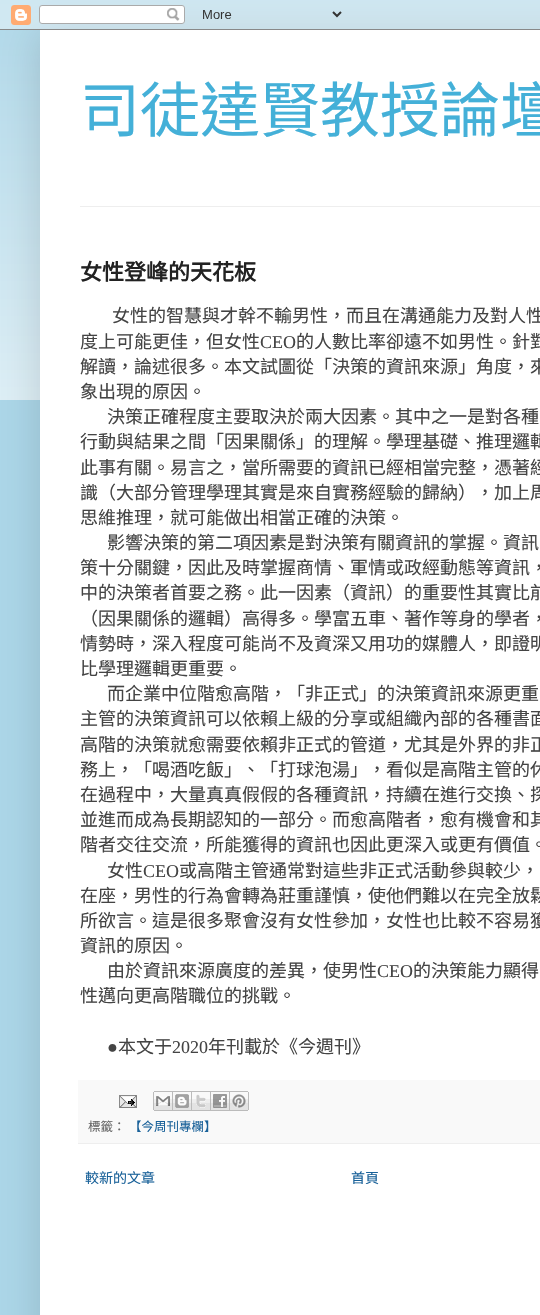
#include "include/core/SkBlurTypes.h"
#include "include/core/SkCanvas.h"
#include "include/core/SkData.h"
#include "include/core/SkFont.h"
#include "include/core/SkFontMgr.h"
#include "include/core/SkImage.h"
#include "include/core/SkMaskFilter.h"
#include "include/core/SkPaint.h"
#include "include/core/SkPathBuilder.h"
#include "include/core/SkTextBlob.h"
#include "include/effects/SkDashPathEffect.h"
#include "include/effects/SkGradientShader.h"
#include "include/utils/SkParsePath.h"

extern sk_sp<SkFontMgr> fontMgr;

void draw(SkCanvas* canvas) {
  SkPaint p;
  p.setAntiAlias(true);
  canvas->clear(SkColorSetRGB(172, 215, 233));
  canvas->drawImageRect(SkImages::DeferredFromEncodedData(SkData::MakeFromFileName("images/1.png")), SkRect::MakeLTRB(0, 0, 540, 400), SkSamplingOptions());
  p.setColor(SkColorSetARGB(38, 0, 0, 0));
  p.setMaskFilter(SkMaskFilter::MakeBlur(kNormal_SkBlurStyle, 20));
  canvas->drawRect(SkRect::MakeLTRB(40, 30, 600, 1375), p);
  p.setMaskFilter(nullptr);
  canvas->drawImageRect(SkImages::DeferredFromEncodedData(SkData::MakeFromFileName("images/2.png")), SkRect::MakeLTRB(0, 0, 540, 30), SkSamplingOptions());
  p.setColor(SK_ColorWHITE);
  canvas->drawRect(SkRect::MakeLTRB(40, 30, 540, 1315), p);
  p.setColor(SkColorSetRGB(238, 238, 238));
  canvas->drawRect(SkRect::MakeLTRB(80, 206, 540, 207), p);
  p.setColor(SkColorSetRGB(249, 249, 249));
  canvas->drawRect(SkRect::MakeLTRB(78, 1080, 540, 1143), p);
  p.setColor(SkColorSetRGB(238, 238, 238));
  canvas->drawRect(SkRect::MakeLTRB(78, 1143, 540, 1144), p);
  canvas->drawImageRect(SkImages::DeferredFromEncodedData(SkData::MakeFromFileName("images/3.png")), SkRect::MakeLTRB(119, 1095, 137, 1108), SkSamplingOptions());
  canvas->drawImageRect(SkImages::DeferredFromEncodedData(SkData::MakeFromFileName("images/4.png")), SkRect::MakeLTRB(153, 1091, 173, 1111), SkSamplingOptions());
  canvas->drawImageRect(SkImages::DeferredFromEncodedData(SkData::MakeFromFileName("images/5.png")), SkRect::MakeLTRB(173, 1091, 192, 1111), SkSamplingOptions());
  canvas->drawImageRect(SkImages::DeferredFromEncodedData(SkData::MakeFromFileName("images/6.png")), SkRect::MakeLTRB(192, 1091, 211, 1111), SkSamplingOptions());
  canvas->drawImageRect(SkImages::DeferredFromEncodedData(SkData::MakeFromFileName("images/7.png")), SkRect::MakeLTRB(211, 1091, 230, 1111), SkSamplingOptions());
  canvas->drawImageRect(SkImages::DeferredFromEncodedData(SkData::MakeFromFileName("images/8.png")), SkRect::MakeLTRB(230, 1091, 249, 1111), SkSamplingOptions());
  SkFont font1(fontMgr->matchFamilyStyle("Noto Sans CJK TC", SkFontStyle::Normal()), 60);
  font1.setSubpixel(true);
  p.setColor(SkColorSetRGB(68, 176, 216));
  canvas->drawString("司徒達賢教授論壇", 80, 132, font1, p);
  SkFont font2(fontMgr->matchFamilyStyle("Noto Sans CJK TC", SkFontStyle::Bold()), 22);
  font2.setSubpixel(true);
  p.setColor(SkColorSetRGB(34, 34, 34));
  canvas->drawString("女性登峰的天花板", 80, 280, font2, p);
  SkFont font3(fontMgr->matchFamilyStyle("Noto Sans CJK TC", SkFontStyle::Normal()), 18);
  font3.setSubpixel(true);
  p.setColor(SkColorSetRGB(68, 68, 68));
  canvas->drawString("女性的智慧與才幹不輸男性，而且在溝通能力及對人性", 112, 322, font3, p);
  canvas->drawString("度上可能更佳，但女性", 80, 348, font3, p);
  SkFont font4(fontMgr->matchFamilyStyle("Liberation Serif", SkFontStyle::Normal()), 18);
  font4.setSubpixel(true);
  canvas->drawString("CEO", 260, 348, font4, p);
  canvas->drawString("的人數比率卻遠不如男性。針對", 296, 348, font3, p);
  canvas->drawString("解讀，論述很多。本文試圖從「決策的資訊來源」角度，來", 80, 373, font3, p);
  canvas->drawString("象出現的原因。", 80, 398, font3, p);
  canvas->drawString("決策正確程度主要取決於兩大因素。其中之一是對各種", 107, 423, font3, p);
  canvas->drawString("行動與結果之間「因果關係」的理解。學理基礎、推理邏輯", 80, 448, font3, p);
  canvas->drawString("此事有關。易言之，當所需要的資訊已經相當完整，憑著經", 80, 474, font3, p);
  canvas->drawString("識（大部分管理學理其實是來自實務經驗的歸納），加上周", 80, 499, font3, p);
  canvas->drawString("思維推理，就可能做出相當正確的決策。", 80, 524, font3, p);
  canvas->drawString("影響決策的第二項因素是對決策有關資訊的掌握。資訊", 107, 549, font3, p);
  canvas->drawString("策十分關鍵，因此及時掌握商情、軍情或政經動態等資訊，", 80, 574, font3, p);
  canvas->drawString("中的決策者首要之務。此一因素（資訊）的重要性其實比前", 80, 599, font3, p);
  canvas->drawString("（因果關係的邏輯）高得多。學富五車、著作等身的學者，", 80, 625, font3, p);
  canvas->drawString("情勢時，深入程度可能尚不及資深又用功的媒體人，即證明", 80, 650, font3, p);
  canvas->drawString("比學理邏輯更重要。", 80, 675, font3, p);
  canvas->drawString("而企業中位階愈高階，「非正式」的決策資訊來源更重", 107, 700, font3, p);
  canvas->drawString("主管的決策資訊可以依賴上級的分享或組織內部的各種書面", 80, 725, font3, p);
  canvas->drawString("高階的決策就愈需要依賴非正式的管道，尤其是外界的非正", 80, 751, font3, p);
  canvas->drawString("務上，「喝酒吃飯」、「打球泡湯」，看似是高階主管的休", 80, 776, font3, p);
  canvas->drawString("在過程中，大量真真假假的各種資訊，持續在進行交換、探", 80, 801, font3, p);
  canvas->drawString("並進而成為長期認知的一部分。而愈高階者，愈有機會和其", 80, 826, font3, p);
  canvas->drawString("階者交往交流，所能獲得的資訊也因此更深入或更有價值。", 80, 851, font3, p);
  canvas->drawString("女性", 107, 877, font3, p);
  canvas->drawString("CEO", 143, 877, font4, p);
  canvas->drawString("或高階主管通常對這些非正式活動參與較少，", 179, 877, font3, p);
  canvas->drawString("在座，男性的行為會轉為莊重謹慎，使他們難以在完全放鬆", 80, 902, font3, p);
  canvas->drawString("所欲言。這是很多聚會沒有女性參加，女性也比較不容易獲", 80, 927, font3, p);
  canvas->drawString("資訊的原因。", 80, 952, font3, p);
  canvas->drawString("由於資訊來源廣度的差異，使男性", 107, 977, font3, p);
  canvas->drawString("CEO", 377, 977, font4, p);
  canvas->drawString("的決策能力顯得", 413, 977, font3, p);
  canvas->drawString("性邁向更高階職位的挑戰。", 80, 1002, font3, p);
  canvas->drawString("●", 107, 1053, font4, p);
  canvas->drawString("本文于", 118, 1053, font3, p);
  canvas->drawString("2020", 172, 1053, font4, p);
  canvas->drawString("年刊載於《今週刊》", 208, 1053, font3, p);
  SkFont font5(fontMgr->matchFamilyStyle("Noto Sans CJK TC", SkFontStyle::Normal()), 12.5f);
  font5.setSubpixel(true);
  p.setColor(SkColorSetRGB(102, 102, 102));
  canvas->drawString("標籤：", 88, 1131, font5, p);
  p.setColor(SkColorSetRGB(25, 97, 153));
  canvas->drawString("【今周刊專欄】", 129, 1131, font5, p);
  SkFont font6(fontMgr->matchFamilyStyle("Noto Sans CJK TC", SkFontStyle::Normal()), 14);
  font6.setSubpixel(true);
  canvas->drawString("較新的文章", 85, 1183, font6, p);
  canvas->drawString("首頁", 351, 1183, font6, p);
}
